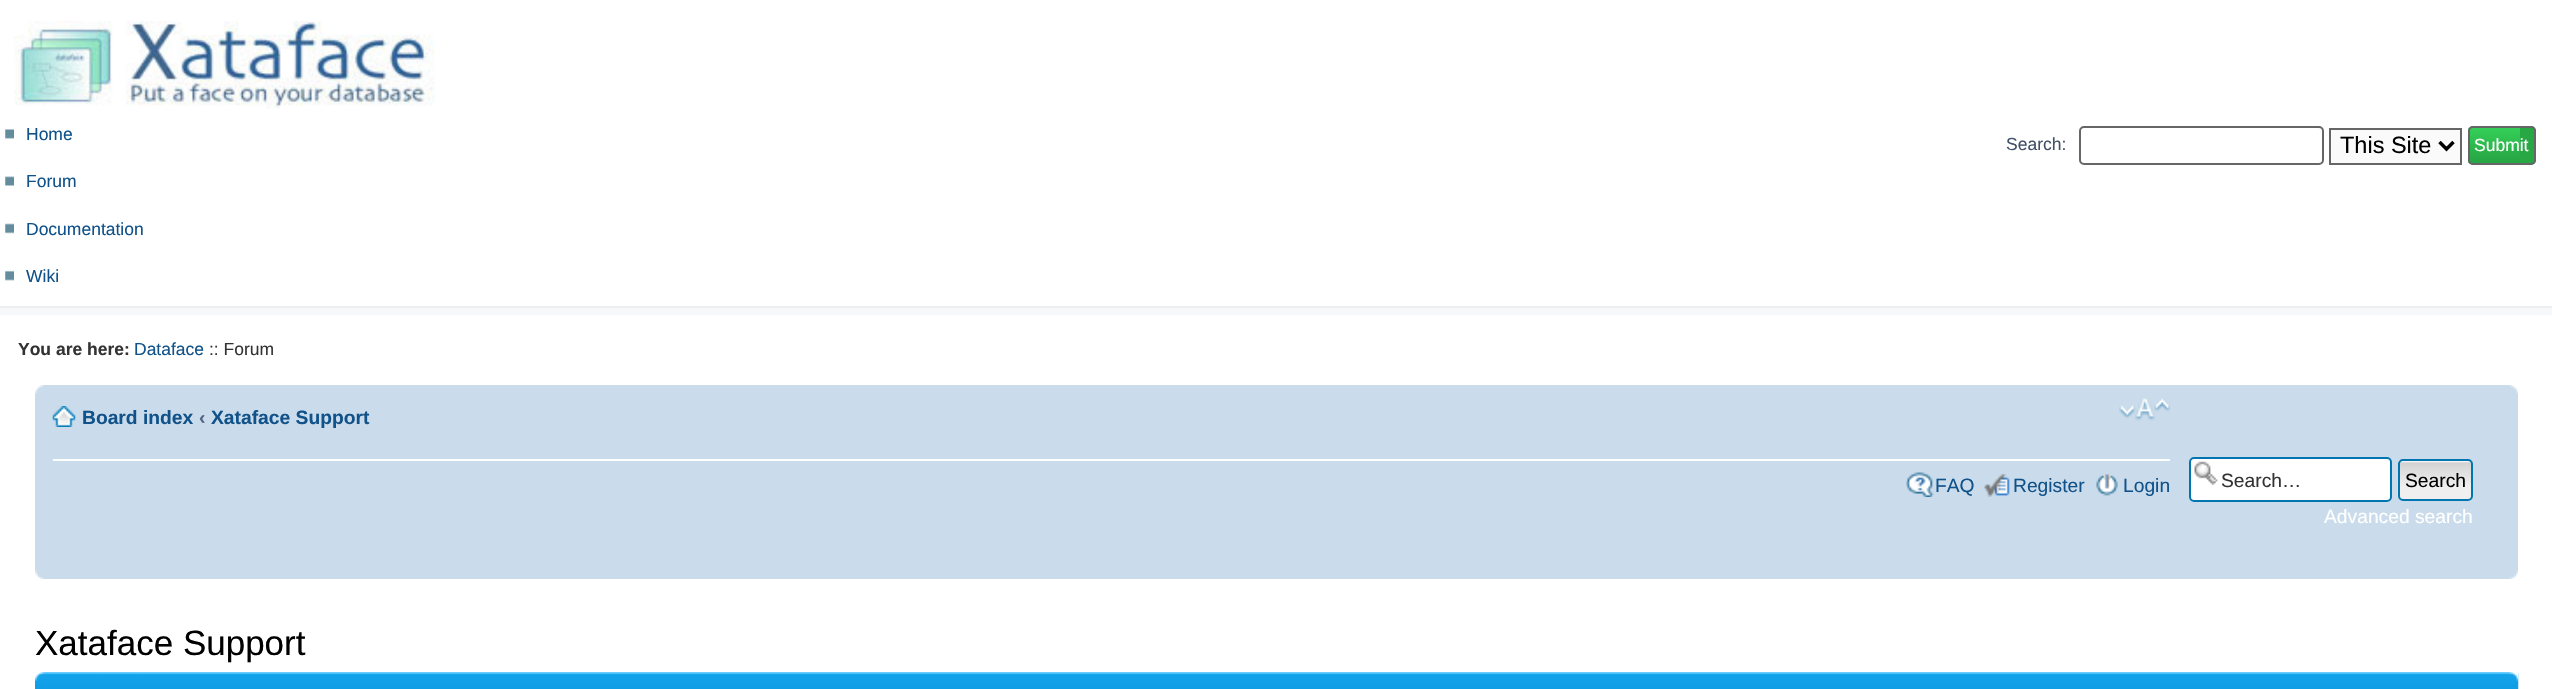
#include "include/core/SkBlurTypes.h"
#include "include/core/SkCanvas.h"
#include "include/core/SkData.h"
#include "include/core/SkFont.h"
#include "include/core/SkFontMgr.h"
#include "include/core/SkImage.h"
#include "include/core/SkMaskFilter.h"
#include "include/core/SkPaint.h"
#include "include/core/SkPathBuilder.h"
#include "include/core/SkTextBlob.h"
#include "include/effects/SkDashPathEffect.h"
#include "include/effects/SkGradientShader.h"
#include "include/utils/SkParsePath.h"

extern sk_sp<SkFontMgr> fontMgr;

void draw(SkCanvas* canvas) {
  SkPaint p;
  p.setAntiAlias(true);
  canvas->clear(SK_ColorWHITE);
  canvas->drawImageRect(SkImages::DeferredFromEncodedData(SkData::MakeFromFileName("images/1.png")), SkRect::MakeLTRB(14, 21, 435, 109), SkSamplingOptions());
  canvas->drawImageRect(SkImages::DeferredFromEncodedData(SkData::MakeFromFileName("images/2.png")), SkRect::MakeLTRB(5, 129, 14, 139), SkSamplingOptions());
  canvas->drawImageRect(SkImages::DeferredFromEncodedData(SkData::MakeFromFileName("images/3.png")), SkRect::MakeLTRB(5, 176, 14, 186), SkSamplingOptions());
  canvas->drawImageRect(SkImages::DeferredFromEncodedData(SkData::MakeFromFileName("images/4.png")), SkRect::MakeLTRB(5, 223, 14, 234), SkSamplingOptions());
  canvas->drawImageRect(SkImages::DeferredFromEncodedData(SkData::MakeFromFileName("images/5.png")), SkRect::MakeLTRB(5, 270, 14, 281), SkSamplingOptions());
  p.setStyle(SkPaint::kStroke_Style);
  p.setStrokeWidth(2);
  p.setColor(SkColorSetRGB(102, 102, 102));
  canvas->drawRoundRect(SkRect::MakeLTRB(2080, 127, 2323, 164), 4, 4, p);
  p.setStyle(SkPaint::kFill_Style);
  p.setColor(SkColorSetRGB(250, 250, 250));
  canvas->drawRect(SkRect::MakeLTRB(2330, 129, 2461, 164), p);
  p.setStyle(SkPaint::kStroke_Style);
  p.setColor(SkColorSetRGB(102, 102, 102));
  canvas->drawRect(SkRect::MakeLTRB(2330, 129, 2461, 164), p);
  p.setStrokeWidth(3.5f);
  p.setColor(SK_ColorBLACK);
  canvas->drawPath(SkPathBuilder().moveTo(2439.5f, 142).lineTo(2446.5f, 149).lineTo(2453.5f, 142).detach(), p);
  p.setStyle(SkPaint::kFill_Style);
  p.setColor(SkColorSetRGB(40, 167, 69));
  canvas->drawRoundRect(SkRect::MakeLTRB(2468, 126, 2536, 165), 5, 5, p);
  canvas->save();
  canvas->clipPath(SkPathBuilder().moveTo(2473, 126).lineTo(2531, 126).cubicTo(2534, 126, 2536, 128, 2536, 131).lineTo(2536, 160).cubicTo(2536, 163, 2534, 165, 2531, 165).lineTo(2473, 165).cubicTo(2470, 165, 2468, 163, 2468, 160).lineTo(2468, 131).cubicTo(2468, 128, 2470, 126, 2473, 126).close().detach(), true);
  {
    const SkColor colors[] = {SkColorSetRGB(52, 208, 88), SkColorSetRGB(40, 167, 69)};
    const float stops[] = {0, 0.9f};
    const SkPoint ends[] = {{2488, 128}, {2488, 163}};
    p.setShader(SkGradientShader::MakeLinear(ends, colors, stops, 2, SkTileMode::kClamp));
    p.setAlpha(255);
  }
  canvas->drawRect(SkRect::MakeLTRB(2468, 128, 2520, 163), p);
  canvas->restore();
  p.setStyle(SkPaint::kStroke_Style);
  p.setStrokeWidth(2);
  p.setShader(nullptr);
  p.setColor(SkColorSetRGB(102, 102, 102));
  canvas->drawRoundRect(SkRect::MakeLTRB(2469, 127, 2535, 164), 4, 4, p);
  p.setStyle(SkPaint::kFill_Style);
  p.setColor(SkColorSetRGB(246, 248, 250));
  canvas->drawRect(SkRect::MakeLTRB(0, 308, 2552, 315), p);
  p.setColor(SkColorSetRGB(236, 239, 241));
  canvas->drawRect(SkRect::MakeLTRB(0, 306, 2552, 308), p);
  p.setColor(SkColorSetRGB(202, 220, 235));
  canvas->drawRect(SkRect::MakeLTRB(35, 385, 2518, 579), p);
  canvas->drawImageRect(SkImages::DeferredFromEncodedData(SkData::MakeFromFileName("images/6.png")), SkRect::MakeLTRB(35, 385, 44, 394), SkSamplingOptions());
  canvas->drawImageRect(SkImages::DeferredFromEncodedData(SkData::MakeFromFileName("images/7.png")), SkRect::MakeLTRB(2509, 385, 2518, 394), SkSamplingOptions());
  p.setColor(SK_ColorWHITE);
  canvas->drawRect(SkRect::MakeLTRB(53, 459, 2170, 461), p);
  canvas->drawImageRect(SkImages::DeferredFromEncodedData(SkData::MakeFromFileName("images/8.png")), SkRect::MakeLTRB(52, 406, 76, 427), SkSamplingOptions());
  canvas->drawImageRect(SkImages::DeferredFromEncodedData(SkData::MakeFromFileName("images/9.png")), SkRect::MakeLTRB(2119, 398, 2170, 421), SkSamplingOptions());
  canvas->drawImageRect(SkImages::DeferredFromEncodedData(SkData::MakeFromFileName("images/10.png")), SkRect::MakeLTRB(1906, 472, 1934, 497), SkSamplingOptions());
  canvas->drawImageRect(SkImages::DeferredFromEncodedData(SkData::MakeFromFileName("images/11.png")), SkRect::MakeLTRB(1984, 473, 2010, 497), SkSamplingOptions());
  canvas->drawImageRect(SkImages::DeferredFromEncodedData(SkData::MakeFromFileName("images/12.png")), SkRect::MakeLTRB(2096, 474, 2118, 496), SkSamplingOptions());
  canvas->drawImageRect(SkImages::DeferredFromEncodedData(SkData::MakeFromFileName("images/13.png")), SkRect::MakeLTRB(35, 570, 44, 579), SkSamplingOptions());
  canvas->drawImageRect(SkImages::DeferredFromEncodedData(SkData::MakeFromFileName("images/14.png")), SkRect::MakeLTRB(2509, 570, 2518, 579), SkSamplingOptions());
  canvas->drawRoundRect(SkRect::MakeLTRB(2189, 457, 2392, 502), 5, 5, p);
  canvas->drawImageRect(SkImages::DeferredFromEncodedData(SkData::MakeFromFileName("images/15.png")), SkRect::MakeLTRB(2194, 461, 2218, 485), SkSamplingOptions());
  p.setStyle(SkPaint::kStroke_Style);
  p.setColor(SkColorSetRGB(0, 117, 176));
  canvas->drawRoundRect(SkRect::MakeLTRB(2190, 458, 2391, 501), 4, 4, p);
  canvas->drawImageRect(SkImages::DeferredFromEncodedData(SkData::MakeFromFileName("images/16.png")), SkRect::MakeLTRB(2397, 460, 2473, 500), SkSamplingOptions());
  canvas->drawRoundRect(SkRect::MakeLTRB(2399, 460, 2472, 500), 4, 4, p);
  canvas->drawImageRect(SkImages::DeferredFromEncodedData(SkData::MakeFromFileName("images/17.png")), SkRect::MakeLTRB(35, 672, 2519, 689), SkSamplingOptions());
  canvas->drawImageRect(SkImages::DeferredFromEncodedData(SkData::MakeFromFileName("images/18.png")), SkRect::MakeLTRB(35, 672, 45, 681), SkSamplingOptions());
  canvas->drawImageRect(SkImages::DeferredFromEncodedData(SkData::MakeFromFileName("images/19.png")), SkRect::MakeLTRB(2509, 672, 2519, 681), SkSamplingOptions());
  SkFont font1(fontMgr->matchFamilyStyle("Liberation Sans", SkFontStyle::Normal()), 17.5f);
  font1.setSubpixel(true);
  p.setStyle(SkPaint::kFill_Style);
  p.setColor(SkColorSetRGB(16, 82, 137));
  canvas->drawString("Home", 26, 140, font1, p);
  canvas->drawString("Forum", 26, 187, font1, p);
  canvas->drawString("Documentation", 26, 235, font1, p);
  canvas->drawString("Wiki", 26, 282, font1, p);
  p.setColor(SkColorSetRGB(66, 80, 103));
  canvas->drawString("Search:", 2006, 150, font1, p);
  SkFont font2(fontMgr->matchFamilyStyle("Liberation Sans", SkFontStyle::Normal()), 23.5f);
  font2.setSubpixel(true);
  p.setColor(SK_ColorBLACK);
  canvas->drawString("This Site", 2340, 153, font2, p);
  p.setColor(SK_ColorWHITE);
  canvas->drawString("Submit", 2474, 151, font1, p);
  SkFont font3(fontMgr->matchFamilyStyle("Liberation Sans", SkFontStyle::Bold()), 17.5f);
  font3.setSubpixel(true);
  p.setColor(SkColorSetRGB(51, 51, 51));
  canvas->drawString("You are here:", 18, 355, font3, p);
  p.setColor(SkColorSetRGB(16, 82, 137));
  canvas->drawString("Dataface", 134, 355, font1, p);
  p.setColor(SkColorSetRGB(51, 51, 51));
  canvas->drawString(":: Forum", 209, 355, font1, p);
  SkFont font4(fontMgr->matchFamilyStyle("Liberation Sans", SkFontStyle::Bold()), 19.25f);
  font4.setSubpixel(true);
  p.setColor(SkColorSetRGB(16, 82, 137));
  canvas->drawString("Board index", 82, 424, font4, p);
  p.setColor(SkColorSetRGB(83, 100, 130));
  canvas->drawString("‹", 199, 424, font4, p);
  p.setColor(SkColorSetRGB(16, 82, 137));
  canvas->drawString("Xataface Support", 211, 424, font4, p);
  SkFont font5(fontMgr->matchFamilyStyle("Liberation Sans", SkFontStyle::Normal()), 19.25f);
  font5.setSubpixel(true);
  canvas->drawString("FAQ", 1935, 492, font5, p);
  canvas->drawString("Register", 2013, 492, font5, p);
  canvas->drawString("Login", 2123, 492, font5, p);
  p.setColor(SkColorSetRGB(51, 51, 51));
  canvas->drawString("Search…", 2221, 487, font5, p);
  p.setColor(SK_ColorBLACK);
  canvas->drawString("Search", 2405, 487, font5, p);
  p.setColor(SK_ColorWHITE);
  canvas->drawString("Advanced search", 2324, 523, font5, p);
  SkFont font6(fontMgr->matchFamilyStyle("Liberation Sans", SkFontStyle::Normal()), 35);
  font6.setSubpixel(true);
  p.setColor(SK_ColorBLACK);
  canvas->drawString("Xataface Support", 35, 655, font6, p);
}
